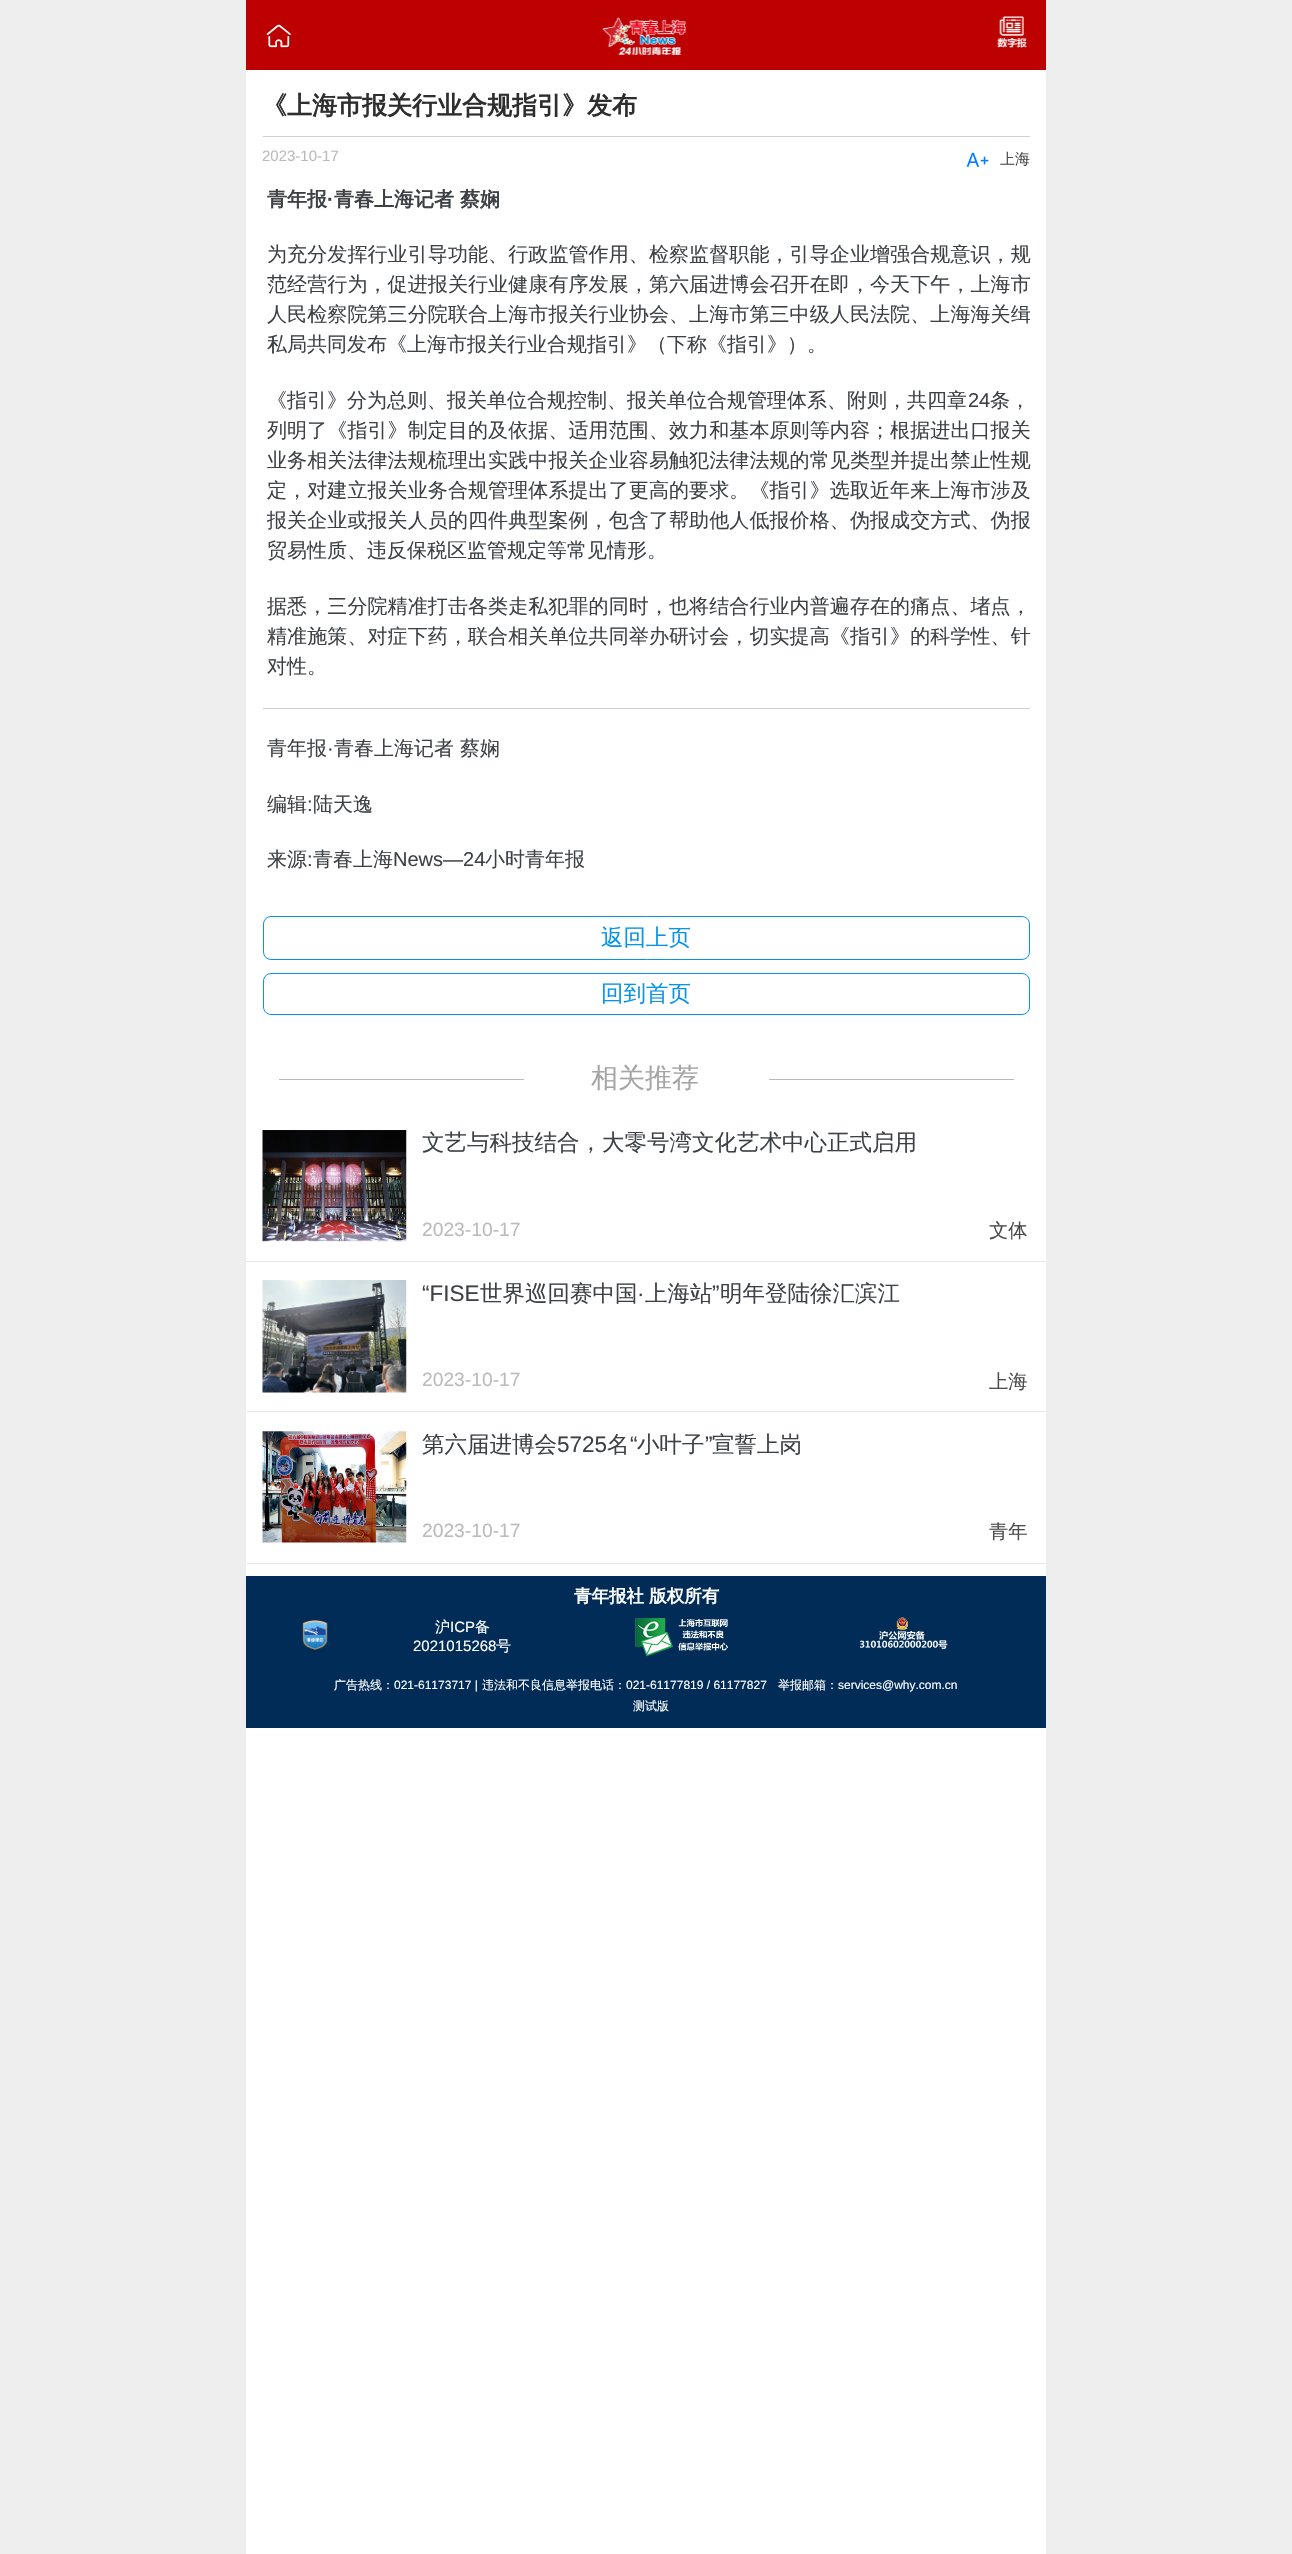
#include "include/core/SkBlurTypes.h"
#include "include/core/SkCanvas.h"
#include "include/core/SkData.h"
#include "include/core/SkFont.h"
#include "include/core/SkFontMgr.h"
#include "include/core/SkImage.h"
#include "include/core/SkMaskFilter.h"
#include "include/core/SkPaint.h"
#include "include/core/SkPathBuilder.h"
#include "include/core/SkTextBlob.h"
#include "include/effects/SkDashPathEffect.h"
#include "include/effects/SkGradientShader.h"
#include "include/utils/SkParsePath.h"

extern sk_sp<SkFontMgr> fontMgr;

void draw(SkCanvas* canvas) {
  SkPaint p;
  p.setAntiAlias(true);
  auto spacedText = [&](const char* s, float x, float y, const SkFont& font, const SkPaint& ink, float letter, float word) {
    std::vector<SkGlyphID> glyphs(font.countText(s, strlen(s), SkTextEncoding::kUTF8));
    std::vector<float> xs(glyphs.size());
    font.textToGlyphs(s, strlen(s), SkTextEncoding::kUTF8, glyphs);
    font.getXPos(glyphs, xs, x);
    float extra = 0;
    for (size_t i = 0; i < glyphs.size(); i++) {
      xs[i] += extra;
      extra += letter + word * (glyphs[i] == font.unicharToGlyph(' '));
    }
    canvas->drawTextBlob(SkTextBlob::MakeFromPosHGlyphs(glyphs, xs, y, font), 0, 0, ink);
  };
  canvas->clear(SkColorSetRGB(238, 238, 238));
  p.setColor(SK_ColorWHITE);
  canvas->drawRect(SkRect::MakeLTRB(246, 70, 1046, 2554), p);
  p.setColor(SkColorSetRGB(189, 0, 0));
  canvas->drawRect(SkRect::MakeLTRB(246, 0, 1046, 70), p);
  canvas->drawImageRect(SkImages::DeferredFromEncodedData(SkData::MakeFromFileName("images/1.png")), SkRect::MakeLTRB(266, 24, 291, 48), SkSamplingOptions());
  canvas->drawImageRect(SkImages::DeferredFromEncodedData(SkData::MakeFromFileName("images/2.png")), SkRect::MakeLTRB(602, 17, 687, 55), SkSamplingOptions());
  canvas->drawImageRect(SkImages::DeferredFromEncodedData(SkData::MakeFromFileName("images/3.png")), SkRect::MakeLTRB(997, 16, 1027, 48), SkSamplingOptions());
  p.setColor(SkColorSetRGB(208, 208, 208));
  canvas->drawRect(SkRect::MakeLTRB(263, 136, 1030, 137), p);
  canvas->drawImageRect(SkImages::DeferredFromEncodedData(SkData::MakeFromFileName("images/4.png")), SkRect::MakeLTRB(966, 152, 989, 167), SkSamplingOptions());
  p.setColor(SkColorSetRGB(206, 206, 206));
  canvas->drawRect(SkRect::MakeLTRB(263, 708, 1030, 709), p);
  p.setStyle(SkPaint::kStroke_Style);
  p.setStrokeWidth(1);
  p.setColor(SkColorSetRGB(8, 148, 236));
  canvas->drawRoundRect(SkRect::MakeLTRB(263.5f, 916.5f, 1029.5f, 959.5f), 7.5f, 7.5f, p);
  canvas->drawRoundRect(SkRect::MakeLTRB(263.5f, 973.5f, 1029.5f, 1014.5f), 7.5f, 7.5f, p);
  p.setStyle(SkPaint::kFill_Style);
  p.setColor(SkColorSetRGB(185, 185, 185));
  canvas->drawRect(SkRect::MakeLTRB(279, 1079, 524, 1080), p);
  canvas->drawRect(SkRect::MakeLTRB(769, 1079, 1014, 1080), p);
  p.setColor(SkColorSetRGB(231, 231, 231));
  canvas->drawRect(SkRect::MakeLTRB(246, 1261, 1046, 1262), p);
  canvas->drawImageRect(SkImages::DeferredFromEncodedData(SkData::MakeFromFileName("images/5.png")), SkRect::MakeLTRB(262, 1130, 407, 1242), SkSamplingOptions());
  canvas->drawRect(SkRect::MakeLTRB(246, 1411, 1046, 1412), p);
  canvas->drawImageRect(SkImages::DeferredFromEncodedData(SkData::MakeFromFileName("images/6.png")), SkRect::MakeLTRB(262, 1280, 407, 1393), SkSamplingOptions());
  canvas->drawRect(SkRect::MakeLTRB(246, 1563, 1046, 1564), p);
  canvas->drawImageRect(SkImages::DeferredFromEncodedData(SkData::MakeFromFileName("images/7.png")), SkRect::MakeLTRB(262, 1431, 407, 1543), SkSamplingOptions());
  p.setColor(SkColorSetRGB(0, 44, 87));
  canvas->drawRect(SkRect::MakeLTRB(246, 1576, 1046, 1728), p);
  canvas->drawImageRect(SkImages::DeferredFromEncodedData(SkData::MakeFromFileName("images/8.png")), SkRect::MakeLTRB(302, 1620, 328, 1650), SkSamplingOptions());
  canvas->drawImageRect(SkImages::DeferredFromEncodedData(SkData::MakeFromFileName("images/9.png")), SkRect::MakeLTRB(635, 1618, 728, 1657), SkSamplingOptions());
  canvas->drawImageRect(SkImages::DeferredFromEncodedData(SkData::MakeFromFileName("images/10.png")), SkRect::MakeLTRB(860, 1617, 948, 1649), SkSamplingOptions());
  SkFont font1(fontMgr->matchFamilyStyle("WenQuanYi Zen Hei", SkFontStyle::Bold()), 25);
  font1.setSubpixel(true);
  p.setColor(SkColorSetRGB(46, 46, 46));
  canvas->drawString("《上海市报关行业合规指引》发布", 262, 114, font1, p);
  SkFont font2(fontMgr->matchFamilyStyle("Liberation Sans", SkFontStyle::Normal()), 15);
  font2.setSubpixel(true);
  p.setColor(SkColorSetRGB(187, 187, 187));
  canvas->drawString("2023-10-17", 262, 161, font2, p);
  SkFont font3(fontMgr->matchFamilyStyle("WenQuanYi Zen Hei", SkFontStyle(500, SkFontStyle::kNormal_Width, SkFontStyle::kUpright_Slant)), 15);
  font3.setSubpixel(true);
  p.setColor(SkColorSetRGB(76, 76, 76));
  canvas->drawString("上海", 1000, 164, font3, p);
  SkFont font4(fontMgr->matchFamilyStyle("WenQuanYi Zen Hei", SkFontStyle::Bold()), 20);
  font4.setSubpixel(true);
  p.setColor(SkColorSetRGB(61, 65, 69));
  canvas->drawString("青年报", 267, 206, font4, p);
  SkFont font5(fontMgr->matchFamilyStyle("Liberation Sans", SkFontStyle::Bold()), 20);
  font5.setSubpixel(true);
  canvas->drawString("·", 327, 206, font5, p);
  canvas->drawString("青春上海记者 蔡娴", 334, 206, font4, p);
  SkFont font6(fontMgr->matchFamilyStyle("WenQuanYi Zen Hei", SkFontStyle(500, SkFontStyle::kNormal_Width, SkFontStyle::kUpright_Slant)), 20);
  font6.setSubpixel(true);
  spacedText("为充分发挥行业引导功能、行政监管作用、检察监督职能，引导企业增强合规意识，规", 267, 261, font6, p, 0.1f, 0);
  spacedText("范经营行为，促进报关行业健康有序发展，第六届进博会召开在即，今天下午，上海市", 267, 291, font6, p, 0.1f, 0);
  spacedText("人民检察院第三分院联合上海市报关行业协会、上海市第三中级人民法院、上海海关缉", 267, 321, font6, p, 0.1f, 0);
  canvas->drawString("私局共同发布《上海市报关行业合规指引》（下称《指引》）。", 267, 351, font6, p);
  canvas->drawString("《指引》分为总则、报关单位合规控制、报关单位合规管理体系、附则，共四章", 267, 407, font6, p);
  SkFont font7(fontMgr->matchFamilyStyle("Liberation Sans", SkFontStyle::Normal()), 20);
  font7.setSubpixel(true);
  canvas->drawString("24", 968, 407, font7, p);
  canvas->drawString("条，", 990, 407, font6, p);
  spacedText("列明了《指引》制定目的及依据、适用范围、效力和基本原则等内容；根据进出口报关", 267, 437, font6, p, 0.1f, 0);
  spacedText("业务相关法律法规梳理出实践中报关企业容易触犯法律法规的常见类型并提出禁止性规", 267, 467, font6, p, 0.1f, 0);
  spacedText("定，对建立报关业务合规管理体系提出了更高的要求。《指引》选取近年来上海市涉及", 267, 497, font6, p, 0.1f, 0);
  spacedText("报关企业或报关人员的四件典型案例，包含了帮助他人低报价格、伪报成交方式、伪报", 267, 527, font6, p, 0.1f, 0);
  canvas->drawString("贸易性质、违反保税区监管规定等常见情形。", 267, 557, font6, p);
  spacedText("据悉，三分院精准打击各类走私犯罪的同时，也将结合行业内普遍存在的痛点、堵点，", 267, 613, font6, p, 0.1f, 0);
  spacedText("精准施策、对症下药，联合相关单位共同举办研讨会，切实提高《指引》的科学性、针", 267, 643, font6, p, 0.1f, 0);
  canvas->drawString("对性。", 267, 673, font6, p);
  canvas->drawString("青年报", 267, 755, font6, p);
  canvas->drawString("·", 327, 755, font7, p);
  canvas->drawString("青春上海记者 蔡娴", 334, 755, font6, p);
  canvas->drawString("编辑", 267, 811, font6, p);
  canvas->drawString(":", 307, 811, font7, p);
  canvas->drawString("陆天逸", 313, 811, font6, p);
  canvas->drawString("来源", 267, 866, font6, p);
  canvas->drawString(":", 307, 866, font7, p);
  canvas->drawString("青春上海", 313, 866, font6, p);
  canvas->drawString("News—24", 393, 866, font7, p);
  canvas->drawString("小时青年报", 485, 866, font6, p);
  SkFont font8(fontMgr->matchFamilyStyle("WenQuanYi Zen Hei", SkFontStyle(500, SkFontStyle::kNormal_Width, SkFontStyle::kUpright_Slant)), 22.5f);
  font8.setSubpixel(true);
  p.setColor(SkColorSetRGB(8, 148, 236));
  canvas->drawString("返回上页", 601, 945, font8, p);
  canvas->drawString("回到首页", 601, 1001, font8, p);
  SkFont font9(fontMgr->matchFamilyStyle("WenQuanYi Zen Hei", SkFontStyle(500, SkFontStyle::kNormal_Width, SkFontStyle::kUpright_Slant)), 27);
  font9.setSubpixel(true);
  p.setColor(SkColorSetRGB(165, 165, 165));
  canvas->drawString("相关推荐", 591, 1087, font9, p);
  p.setColor(SkColorSetRGB(61, 65, 69));
  canvas->drawString("文艺与科技结合，大零号湾文化艺术中心正式启用", 422, 1150, font8, p);
  SkFont font10(fontMgr->matchFamilyStyle("Liberation Sans", SkFontStyle::Normal()), 19.25f);
  font10.setSubpixel(true);
  p.setColor(SkColorSetRGB(187, 187, 187));
  canvas->drawString("2023-10-17", 422, 1236, font10, p);
  SkFont font11(fontMgr->matchFamilyStyle("WenQuanYi Zen Hei", SkFontStyle(500, SkFontStyle::kNormal_Width, SkFontStyle::kUpright_Slant)), 19.25f);
  font11.setSubpixel(true);
  p.setColor(SkColorSetRGB(76, 76, 76));
  canvas->drawString("文体", 989, 1237, font11, p);
  SkFont font12(fontMgr->matchFamilyStyle("Liberation Sans", SkFontStyle::Normal()), 22.5f);
  font12.setSubpixel(true);
  p.setColor(SkColorSetRGB(61, 65, 69));
  canvas->drawString("“FISE", 422, 1301, font12, p);
  canvas->drawString("世界巡回赛中国", 480, 1301, font8, p);
  canvas->drawString("上海站", 645, 1301, font8, p);
  canvas->drawString("”", 712, 1301, font12, p);
  canvas->drawString("明年登陆徐汇滨江", 720, 1301, font8, p);
  canvas->drawString("·", 637, 1301, font12, p);
  p.setColor(SkColorSetRGB(187, 187, 187));
  canvas->drawString("2023-10-17", 422, 1386, font10, p);
  p.setColor(SkColorSetRGB(76, 76, 76));
  canvas->drawString("上海", 989, 1388, font11, p);
  p.setColor(SkColorSetRGB(61, 65, 69));
  canvas->drawString("第六届进博会", 422, 1452, font8, p);
  canvas->drawString("5725", 557, 1452, font12, p);
  canvas->drawString("名", 607, 1452, font8, p);
  canvas->drawString("“", 630, 1452, font12, p);
  canvas->drawString("小叶子", 637, 1452, font8, p);
  canvas->drawString("”", 705, 1452, font12, p);
  canvas->drawString("宣誓上岗", 712, 1452, font8, p);
  p.setColor(SkColorSetRGB(187, 187, 187));
  canvas->drawString("2023-10-17", 422, 1537, font10, p);
  p.setColor(SkColorSetRGB(76, 76, 76));
  canvas->drawString("青年", 989, 1538, font11, p);
  SkFont font13(fontMgr->matchFamilyStyle("WenQuanYi Zen Hei", SkFontStyle::Bold()), 17.5f);
  font13.setSubpixel(true);
  p.setColor(SK_ColorWHITE);
  canvas->drawString("青年报社 版权所有", 574, 1602, font13, p);
  canvas->drawString("沪", 435, 1632, font3, p);
  canvas->drawString("ICP", 450, 1632, font2, p);
  canvas->drawString("备", 475, 1632, font3, p);
  canvas->drawString("2021015268", 413, 1651, font2, p);
  canvas->drawString("号", 496, 1651, font3, p);
  SkFont font14(fontMgr->matchFamilyStyle("WenQuanYi Zen Hei", SkFontStyle(500, SkFontStyle::kNormal_Width, SkFontStyle::kUpright_Slant)), 12);
  font14.setSubpixel(true);
  canvas->drawString("广告热线：", 334, 1689, font14, p);
  SkFont font15(fontMgr->matchFamilyStyle("Liberation Sans", SkFontStyle::Normal()), 12);
  font15.setSubpixel(true);
  canvas->drawString("021-61173717 |", 394, 1689, font15, p);
  canvas->drawString("违法和不良信息举报电话：", 482, 1689, font14, p);
  canvas->drawString("021-61177819 / 61177827", 626, 1689, font15, p);
  canvas->drawString("举报邮箱：", 778, 1689, font14, p);
  canvas->drawString("services@why.com.cn", 838, 1689, font15, p);
  canvas->drawString("测试版", 633, 1710, font14, p);
}
